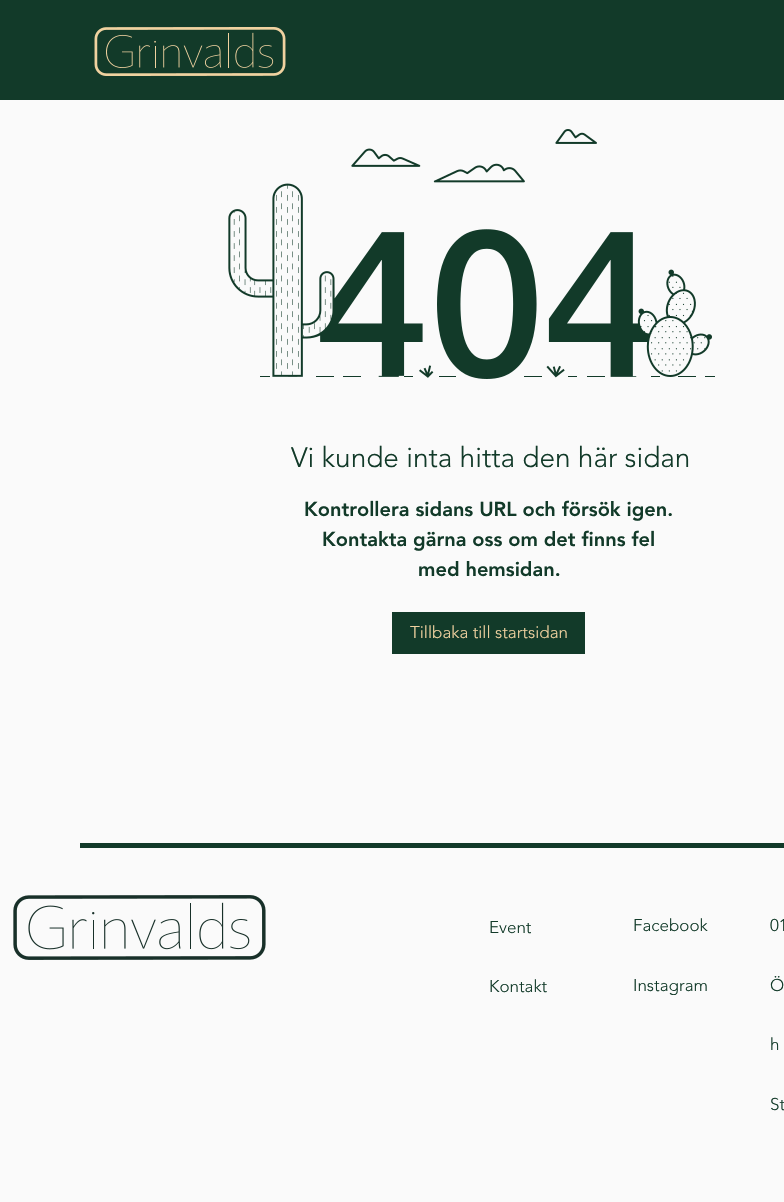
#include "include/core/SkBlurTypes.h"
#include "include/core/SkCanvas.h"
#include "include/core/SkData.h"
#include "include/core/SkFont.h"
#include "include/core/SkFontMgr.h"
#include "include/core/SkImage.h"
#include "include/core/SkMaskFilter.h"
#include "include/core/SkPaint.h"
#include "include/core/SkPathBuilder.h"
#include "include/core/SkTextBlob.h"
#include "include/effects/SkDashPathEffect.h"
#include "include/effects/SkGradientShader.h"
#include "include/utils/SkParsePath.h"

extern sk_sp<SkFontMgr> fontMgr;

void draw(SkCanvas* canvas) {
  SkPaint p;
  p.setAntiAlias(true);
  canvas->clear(SkColorSetRGB(250, 250, 250));
  p.setColor(SkColorSetRGB(18, 58, 41));
  canvas->drawRect(SkRect::MakeLTRB(0, 0, 784, 100), p);
  canvas->drawImageRect(SkImages::DeferredFromEncodedData(SkData::MakeFromFileName("images/1.png")), SkRect::MakeLTRB(94, 27, 286, 76), SkSamplingOptions());
  canvas->drawImageRect(SkImages::DeferredFromEncodedData(SkData::MakeFromFileName("images/2.png")), SkRect::MakeLTRB(228, 129, 715, 379), SkSamplingOptions());
  canvas->drawRect(SkRect::MakeLTRB(392, 612, 585, 654), p);
  canvas->drawRect(SkRect::MakeLTRB(80, 843, 784, 848), p);
  canvas->drawImageRect(SkImages::DeferredFromEncodedData(SkData::MakeFromFileName("images/3.png")), SkRect::MakeLTRB(13, 895, 266, 960), SkSamplingOptions());
  SkFont font1(fontMgr->matchFamilyStyle("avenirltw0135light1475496", SkFontStyle(300, SkFontStyle::kNormal_Width, SkFontStyle::kUpright_Slant)), 28);
  font1.setSubpixel(true);
  canvas->drawString("Vi kunde inta hitta den här sidan", 291, 467, font1, p);
  SkFont font2(fontMgr->matchFamilyStyle("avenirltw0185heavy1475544", SkFontStyle(900, SkFontStyle::kNormal_Width, SkFontStyle::kUpright_Slant)), 20);
  font2.setSubpixel(true);
  canvas->drawString("Kontrollera sidans URL och försök igen.", 304, 516, font2, p);
  canvas->drawString("Kontakta gärna oss om det finns fel", 322, 546, font2, p);
  canvas->drawString("med hemsidan.", 418, 576, font2, p);
  SkFont font3(fontMgr->matchFamilyStyle("avenirltw0135light1475496", SkFontStyle(300, SkFontStyle::kNormal_Width, SkFontStyle::kUpright_Slant)), 17);
  font3.setSubpixel(true);
  p.setColor(SkColorSetRGB(239, 209, 159));
  canvas->drawString("Tillbaka till startsidan", 410, 638, font3, p);
  p.setColor(SkColorSetRGB(18, 58, 41));
  canvas->drawString("Event", 489, 933, font3, p);
  canvas->drawString("Kontakt", 489, 992, font3, p);
  canvas->drawString("Facebook", 633, 931, font3, p);
  canvas->drawString("Instagram", 633, 991, font3, p);
  canvas->drawString("01", 770, 931, font3, p);
  canvas->drawString("Ö", 770, 991, font3, p);
  canvas->drawString("h", 770, 1050, font3, p);
  canvas->drawString("St", 770, 1110, font3, p);
}
